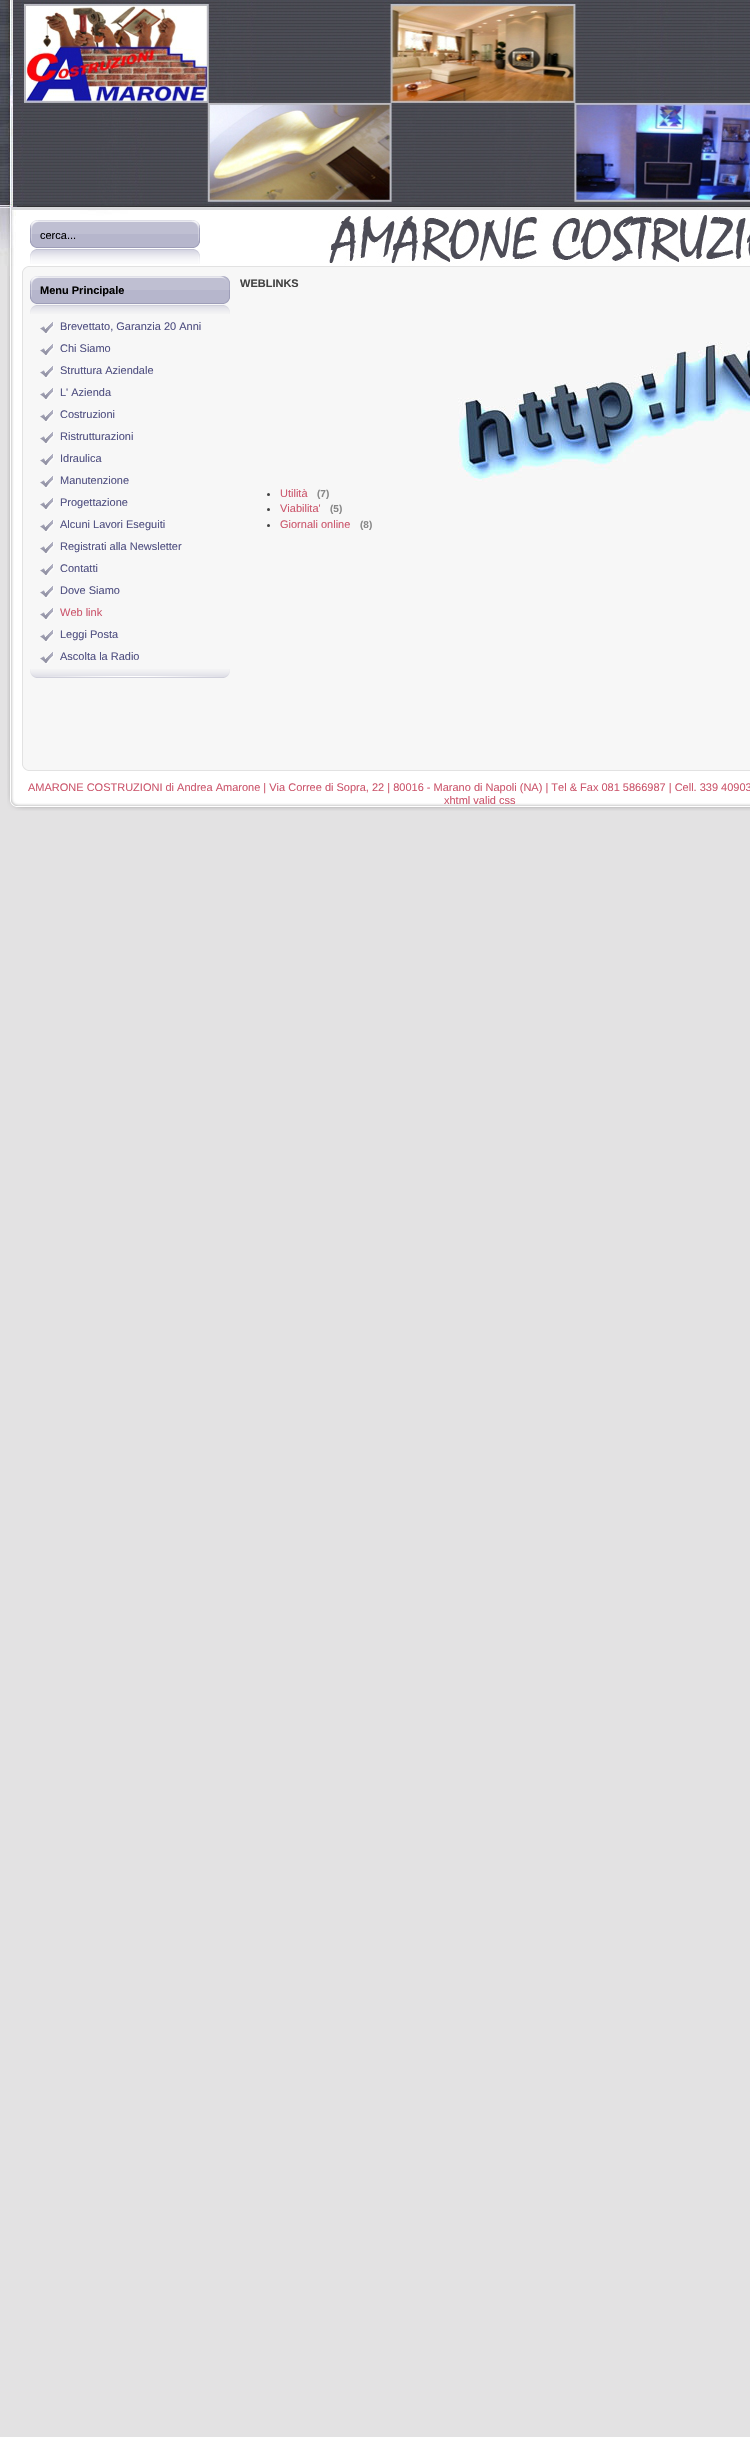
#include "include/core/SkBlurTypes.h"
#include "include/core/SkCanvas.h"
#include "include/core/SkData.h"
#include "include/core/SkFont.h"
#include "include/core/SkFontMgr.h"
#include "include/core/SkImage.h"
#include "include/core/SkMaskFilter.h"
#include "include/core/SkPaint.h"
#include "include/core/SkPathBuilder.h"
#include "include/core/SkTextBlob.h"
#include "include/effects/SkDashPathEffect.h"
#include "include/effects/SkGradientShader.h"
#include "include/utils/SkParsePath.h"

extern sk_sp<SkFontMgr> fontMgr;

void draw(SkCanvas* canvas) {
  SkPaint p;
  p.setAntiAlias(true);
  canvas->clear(SkColorSetRGB(227, 226, 227));
  canvas->drawImageRect(SkImages::DeferredFromEncodedData(SkData::MakeFromFileName("images/1.png")), SkRect::MakeLTRB(0, 0, 750, 266), SkSamplingOptions());
  canvas->drawImageRect(SkImages::DeferredFromEncodedData(SkData::MakeFromFileName("images/2.png")), SkRect::MakeLTRB(30, 220, 200, 264), SkSamplingOptions());
  canvas->drawImageRect(SkImages::DeferredFromEncodedData(SkData::MakeFromFileName("images/3.png")), SkRect::MakeLTRB(7, 266, 750, 741), SkSamplingOptions());
  canvas->drawImageRect(SkImages::DeferredFromEncodedData(SkData::MakeFromFileName("images/4.png")), SkRect::MakeLTRB(9, 266, 750, 276), SkSamplingOptions());
  canvas->drawImageRect(SkImages::DeferredFromEncodedData(SkData::MakeFromFileName("images/5.png")), SkRect::MakeLTRB(30, 669, 230, 678), SkSamplingOptions());
  canvas->drawImageRect(SkImages::DeferredFromEncodedData(SkData::MakeFromFileName("images/6.png")), SkRect::MakeLTRB(30, 276, 230, 314), SkSamplingOptions());
  canvas->drawImageRect(SkImages::DeferredFromEncodedData(SkData::MakeFromFileName("images/7.png")), SkRect::MakeLTRB(40, 322, 54, 334), SkSamplingOptions());
  canvas->drawImageRect(SkImages::DeferredFromEncodedData(SkData::MakeFromFileName("images/7.png")), SkRect::MakeLTRB(40, 344, 54, 356), SkSamplingOptions());
  canvas->drawImageRect(SkImages::DeferredFromEncodedData(SkData::MakeFromFileName("images/7.png")), SkRect::MakeLTRB(40, 366, 54, 378), SkSamplingOptions());
  canvas->drawImageRect(SkImages::DeferredFromEncodedData(SkData::MakeFromFileName("images/7.png")), SkRect::MakeLTRB(40, 388, 54, 400), SkSamplingOptions());
  canvas->drawImageRect(SkImages::DeferredFromEncodedData(SkData::MakeFromFileName("images/7.png")), SkRect::MakeLTRB(40, 410, 54, 422), SkSamplingOptions());
  canvas->drawImageRect(SkImages::DeferredFromEncodedData(SkData::MakeFromFileName("images/7.png")), SkRect::MakeLTRB(40, 432, 54, 444), SkSamplingOptions());
  canvas->drawImageRect(SkImages::DeferredFromEncodedData(SkData::MakeFromFileName("images/7.png")), SkRect::MakeLTRB(40, 454, 54, 466), SkSamplingOptions());
  canvas->drawImageRect(SkImages::DeferredFromEncodedData(SkData::MakeFromFileName("images/7.png")), SkRect::MakeLTRB(40, 476, 54, 488), SkSamplingOptions());
  canvas->drawImageRect(SkImages::DeferredFromEncodedData(SkData::MakeFromFileName("images/7.png")), SkRect::MakeLTRB(40, 498, 54, 510), SkSamplingOptions());
  canvas->drawImageRect(SkImages::DeferredFromEncodedData(SkData::MakeFromFileName("images/7.png")), SkRect::MakeLTRB(40, 520, 54, 532), SkSamplingOptions());
  canvas->drawImageRect(SkImages::DeferredFromEncodedData(SkData::MakeFromFileName("images/7.png")), SkRect::MakeLTRB(40, 542, 54, 554), SkSamplingOptions());
  canvas->drawImageRect(SkImages::DeferredFromEncodedData(SkData::MakeFromFileName("images/7.png")), SkRect::MakeLTRB(40, 564, 54, 576), SkSamplingOptions());
  canvas->drawImageRect(SkImages::DeferredFromEncodedData(SkData::MakeFromFileName("images/7.png")), SkRect::MakeLTRB(40, 586, 54, 598), SkSamplingOptions());
  canvas->drawImageRect(SkImages::DeferredFromEncodedData(SkData::MakeFromFileName("images/7.png")), SkRect::MakeLTRB(40, 608, 54, 620), SkSamplingOptions());
  canvas->drawImageRect(SkImages::DeferredFromEncodedData(SkData::MakeFromFileName("images/7.png")), SkRect::MakeLTRB(40, 630, 54, 642), SkSamplingOptions());
  canvas->drawImageRect(SkImages::DeferredFromEncodedData(SkData::MakeFromFileName("images/7.png")), SkRect::MakeLTRB(40, 652, 54, 664), SkSamplingOptions());
  canvas->drawImageRect(SkImages::DeferredFromEncodedData(SkData::MakeFromFileName("images/8.png")), SkRect::MakeLTRB(458, 342, 750, 482), SkSamplingOptions());
  p.setColor(SkColorSetRGB(66, 66, 66));
  canvas->drawCircle(268.5f, 494.5f, 1.5f, p);
  canvas->drawCircle(268.5f, 509.5f, 1.5f, p);
  canvas->drawCircle(268.5f, 525.5f, 1.5f, p);
  canvas->drawImageRect(SkImages::DeferredFromEncodedData(SkData::MakeFromFileName("images/9.png")), SkRect::MakeLTRB(7, 741, 750, 811), SkSamplingOptions());
  SkFont font1(fontMgr->matchFamilyStyle("Liberation Sans", SkFontStyle::Normal()), 11);
  font1.setSubpixel(true);
  p.setColor(SK_ColorBLACK);
  canvas->drawString("cerca...", 40, 239, font1, p);
  SkFont font2(fontMgr->matchFamilyStyle("Liberation Sans", SkFontStyle::Bold()), 11);
  font2.setSubpixel(true);
  canvas->drawString("Menu Principale", 40, 294, font2, p);
  p.setColor(SkColorSetRGB(81, 81, 130));
  canvas->drawString("Brevettato, Garanzia 20 Anni", 60, 330, font1, p);
  canvas->drawString("Chi Siamo", 60, 352, font1, p);
  canvas->drawString("Struttura Aziendale", 60, 374, font1, p);
  canvas->drawString("L' Azienda", 60, 396, font1, p);
  canvas->drawString("Costruzioni", 60, 418, font1, p);
  canvas->drawString("Ristrutturazioni", 60, 440, font1, p);
  canvas->drawString("Idraulica", 60, 462, font1, p);
  canvas->drawString("Manutenzione", 60, 484, font1, p);
  canvas->drawString("Progettazione", 60, 506, font1, p);
  canvas->drawString("Alcuni Lavori Eseguiti", 60, 528, font1, p);
  canvas->drawString("Registrati alla Newsletter", 60, 550, font1, p);
  canvas->drawString("Contatti", 60, 572, font1, p);
  canvas->drawString("Dove Siamo", 60, 594, font1, p);
  p.setColor(SkColorSetRGB(204, 87, 109));
  canvas->drawString("Web link", 60, 616, font1, p);
  p.setColor(SkColorSetRGB(81, 81, 130));
  canvas->drawString("Leggi Posta", 60, 638, font1, p);
  canvas->drawString("Ascolta la Radio", 60, 660, font1, p);
  p.setColor(SkColorSetRGB(66, 66, 66));
  canvas->drawString("WEBLINKS", 240, 287, font2, p);
  p.setColor(SkColorSetRGB(204, 87, 109));
  canvas->drawString("Utilità", 280, 497, font1, p);
  SkFont font3(fontMgr->matchFamilyStyle("Liberation Sans", SkFontStyle::Bold()), 10);
  font3.setSubpixel(true);
  p.setColor(SkColorSetRGB(136, 136, 136));
  canvas->drawString("(7)", 317, 497, font3, p);
  p.setColor(SkColorSetRGB(204, 87, 109));
  canvas->drawString("Viabilita'", 280, 512, font1, p);
  p.setColor(SkColorSetRGB(136, 136, 136));
  canvas->drawString("(5)", 330, 512, font3, p);
  p.setColor(SkColorSetRGB(204, 87, 109));
  canvas->drawString("Giornali online", 280, 528, font1, p);
  p.setColor(SkColorSetRGB(136, 136, 136));
  canvas->drawString("(8)", 360, 528, font3, p);
  p.setColor(SkColorSetRGB(204, 87, 109));
  canvas->drawString("AMARONE COSTRUZIONI di Andrea Amarone | Via Corree di Sopra, 22 | 80016 - Marano di Napoli (NA) | Tel & Fax 081 5866987 | Cell. 339 40903", 28, 791, font1, p);
  canvas->drawString("xhtml valid css", 444, 804, font1, p);
}
